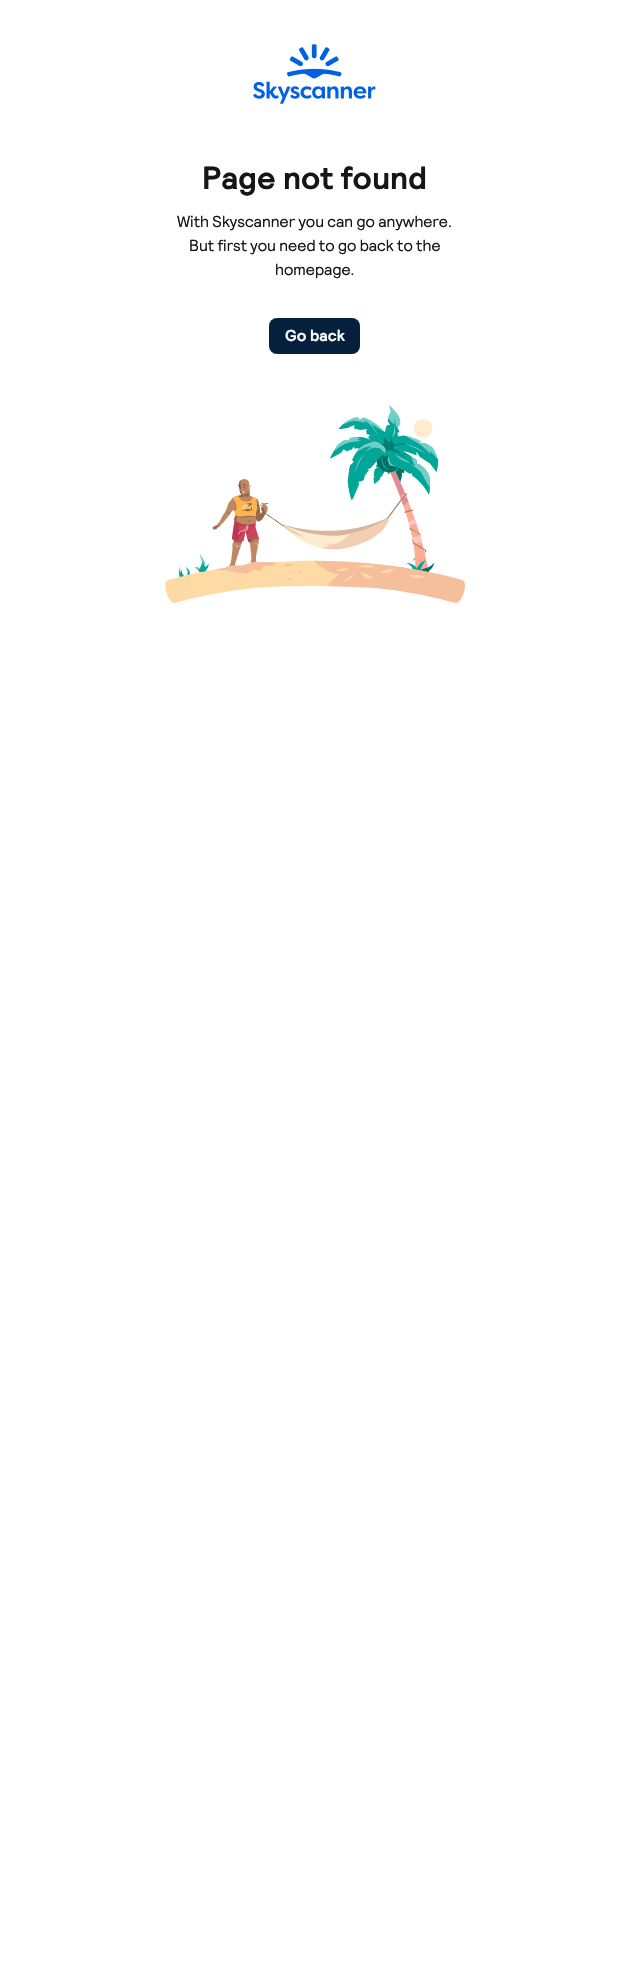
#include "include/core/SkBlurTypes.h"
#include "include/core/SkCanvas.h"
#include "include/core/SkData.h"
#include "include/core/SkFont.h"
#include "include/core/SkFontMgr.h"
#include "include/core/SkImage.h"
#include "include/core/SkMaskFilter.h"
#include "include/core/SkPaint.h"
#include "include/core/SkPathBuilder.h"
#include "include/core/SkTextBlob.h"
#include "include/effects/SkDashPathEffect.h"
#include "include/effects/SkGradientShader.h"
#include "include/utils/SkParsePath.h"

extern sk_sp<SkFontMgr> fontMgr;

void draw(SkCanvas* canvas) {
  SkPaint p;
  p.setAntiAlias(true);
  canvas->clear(SK_ColorWHITE);
  canvas->drawImageRect(SkImages::DeferredFromEncodedData(SkData::MakeFromFileName("images/1.png")), SkRect::MakeLTRB(253, 44, 376, 104), SkSamplingOptions());
  p.setColor(SkColorSetRGB(5, 32, 60));
  canvas->drawRoundRect(SkRect::MakeLTRB(269, 318, 360, 354), 8, 8, p);
  canvas->drawImageRect(SkImages::DeferredFromEncodedData(SkData::MakeFromFileName("images/2.png")), SkRect::MakeLTRB(165, 405, 465, 603), SkSamplingOptions());
  SkFont font1(fontMgr->matchFamilyStyle("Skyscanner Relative", SkFontStyle::Bold()), 32);
  font1.setSubpixel(true);
  p.setColor(SkColorSetRGB(22, 22, 22));
  canvas->drawString("Page not found", 202, 189, font1, p);
  SkFont font2(fontMgr->matchFamilyStyle("Skyscanner Relative", SkFontStyle::Normal()), 16);
  font2.setSubpixel(true);
  canvas->drawString("With Skyscanner you can go anywhere.", 177, 227, font2, p);
  canvas->drawString("But first you need to go back to the", 189, 251, font2, p);
  canvas->drawString("homepage.", 275, 275, font2, p);
  SkFont font3(fontMgr->matchFamilyStyle("Skyscanner Relative", SkFontStyle::Bold()), 16);
  font3.setSubpixel(true);
  p.setColor(SK_ColorWHITE);
  canvas->drawString("Go back", 285, 341, font3, p);
}
